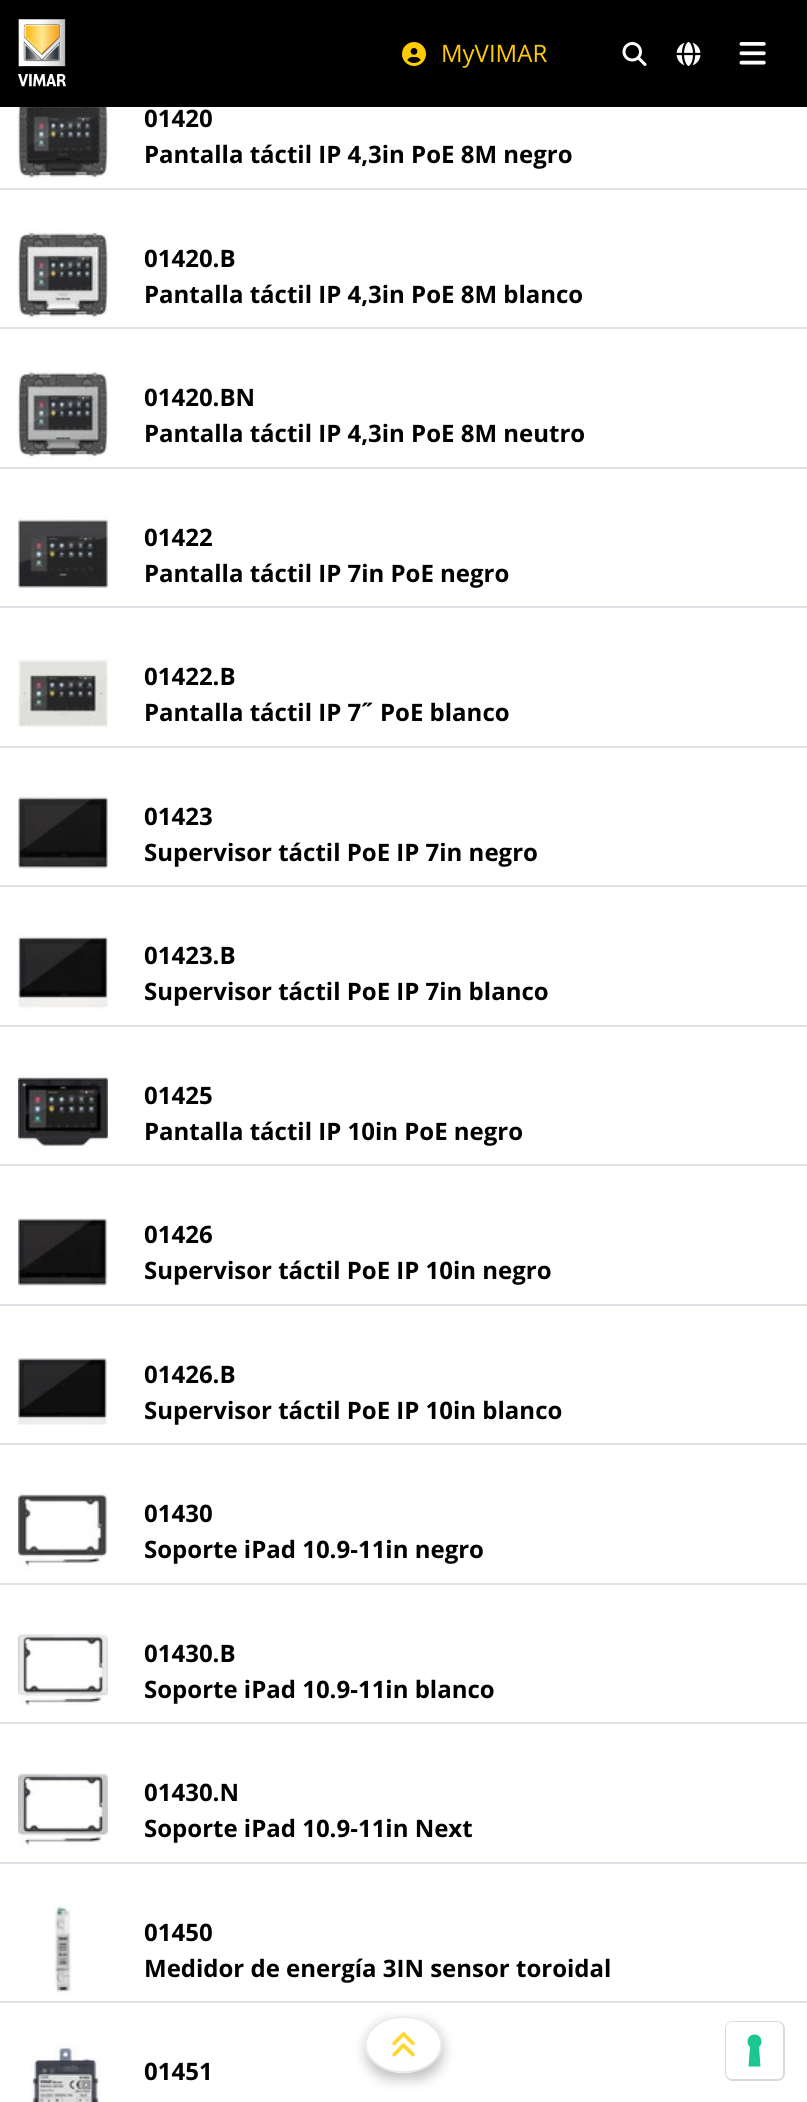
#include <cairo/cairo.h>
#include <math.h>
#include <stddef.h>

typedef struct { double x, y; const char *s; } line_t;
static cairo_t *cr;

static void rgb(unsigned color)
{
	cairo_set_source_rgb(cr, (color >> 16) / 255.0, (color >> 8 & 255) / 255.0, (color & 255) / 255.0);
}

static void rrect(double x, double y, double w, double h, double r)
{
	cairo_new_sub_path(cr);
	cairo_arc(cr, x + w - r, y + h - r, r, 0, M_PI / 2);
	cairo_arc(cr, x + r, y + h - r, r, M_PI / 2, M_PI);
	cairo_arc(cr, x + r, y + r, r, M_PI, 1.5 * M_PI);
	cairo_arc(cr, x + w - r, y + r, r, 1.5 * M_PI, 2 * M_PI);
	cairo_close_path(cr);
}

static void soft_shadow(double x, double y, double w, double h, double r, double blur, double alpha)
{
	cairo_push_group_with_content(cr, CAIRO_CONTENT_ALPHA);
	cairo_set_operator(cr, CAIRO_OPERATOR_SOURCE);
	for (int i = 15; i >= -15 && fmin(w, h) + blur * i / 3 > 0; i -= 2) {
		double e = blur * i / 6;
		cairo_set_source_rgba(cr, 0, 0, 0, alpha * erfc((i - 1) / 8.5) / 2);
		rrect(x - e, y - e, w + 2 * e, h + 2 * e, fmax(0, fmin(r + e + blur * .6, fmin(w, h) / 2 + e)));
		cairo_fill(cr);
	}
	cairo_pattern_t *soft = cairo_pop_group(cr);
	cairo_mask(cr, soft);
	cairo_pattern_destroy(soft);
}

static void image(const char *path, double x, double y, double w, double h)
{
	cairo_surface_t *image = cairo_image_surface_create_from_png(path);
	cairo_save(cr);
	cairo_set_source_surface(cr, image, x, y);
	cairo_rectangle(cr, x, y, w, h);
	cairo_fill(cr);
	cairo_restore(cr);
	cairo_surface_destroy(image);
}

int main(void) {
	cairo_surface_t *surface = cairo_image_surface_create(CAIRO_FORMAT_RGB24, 807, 2102);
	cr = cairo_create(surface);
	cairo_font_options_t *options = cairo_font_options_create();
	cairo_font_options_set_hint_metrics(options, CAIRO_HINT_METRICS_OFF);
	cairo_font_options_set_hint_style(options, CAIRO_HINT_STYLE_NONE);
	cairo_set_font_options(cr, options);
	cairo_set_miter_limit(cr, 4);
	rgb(0xffffff);
	cairo_paint(cr);
	rgb(0x000000);
	cairo_rectangle(cr, 0, 0, 807, 107);
	cairo_fill(cr);
	image("img/1.png", 18, 19, 48, 68);
	image("img/2.png", 402, 42, 24, 24);
	image("img/3.png", 622, 42, 25, 24);
	image("img/4.png", 676, 42, 25, 24);
	image("img/5.png", 739, 42, 27, 23);
	rgb(0xdee2e6);
	cairo_rectangle(cr, 0, 188, 807, 2);
	cairo_fill(cr);
	image("img/6.png", 18, 107, 90, 74);
	cairo_rectangle(cr, 0, 327, 807, 2);
	cairo_fill(cr);
	image("img/7.png", 18, 230, 90, 90);
	cairo_rectangle(cr, 0, 467, 807, 2);
	cairo_fill(cr);
	image("img/8.png", 18, 370, 90, 90);
	cairo_rectangle(cr, 0, 606, 807, 2);
	cairo_fill(cr);
	image("img/9.png", 18, 516, 90, 72);
	cairo_rectangle(cr, 0, 746, 807, 2);
	cairo_fill(cr);
	image("img/10.png", 18, 659, 90, 69);
	cairo_rectangle(cr, 0, 885, 807, 2);
	cairo_fill(cr);
	image("img/11.png", 18, 796, 90, 73);
	cairo_rectangle(cr, 0, 1025, 807, 2);
	cairo_fill(cr);
	image("img/12.png", 18, 934, 90, 78);
	cairo_rectangle(cr, 0, 1164, 807, 2);
	cairo_fill(cr);
	image("img/13.png", 18, 1074, 90, 76);
	cairo_rectangle(cr, 0, 1304, 807, 2);
	cairo_fill(cr);
	image("img/14.png", 18, 1218, 90, 68);
	cairo_rectangle(cr, 0, 1443, 807, 2);
	cairo_fill(cr);
	image("img/15.png", 18, 1358, 90, 67);
	cairo_rectangle(cr, 0, 1583, 807, 2);
	cairo_fill(cr);
	image("img/16.png", 18, 1492, 90, 78);
	cairo_rectangle(cr, 0, 1722, 807, 2);
	cairo_fill(cr);
	image("img/17.png", 18, 1634, 90, 72);
	cairo_rectangle(cr, 0, 1862, 807, 2);
	cairo_fill(cr);
	image("img/18.png", 18, 1773, 90, 76);
	cairo_rectangle(cr, 0, 2001, 807, 2);
	cairo_fill(cr);
	image("img/19.png", 54, 1905, 18, 90);
	image("img/20.png", 30, 2044, 72, 58);
	cairo_save(cr);
	cairo_set_fill_rule(cr, CAIRO_FILL_RULE_EVEN_ODD);
	cairo_new_path(cr);
	cairo_move_to(cr, 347, 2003);
	cairo_line_to(cr, 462, 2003);
	cairo_line_to(cr, 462, 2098);
	cairo_line_to(cr, 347, 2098);
	cairo_close_path(cr);
	cairo_move_to(cr, 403.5, 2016);
	cairo_curve_to(cr, 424.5, 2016, 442, 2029, 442, 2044.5);
	cairo_curve_to(cr, 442, 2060, 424.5, 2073, 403.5, 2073);
	cairo_curve_to(cr, 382.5, 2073, 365, 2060, 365, 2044.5);
	cairo_curve_to(cr, 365, 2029, 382.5, 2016, 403.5, 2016);
	cairo_close_path(cr);
	cairo_clip(cr);
	rgb(0x333333);
	soft_shadow(366, 2022, 77, 57, 28.5, 6, 0.3);
	cairo_restore(cr);
	cairo_new_path(cr);
	cairo_move_to(cr, 403.5, 2017);
	cairo_curve_to(cr, 424, 2017, 441, 2029, 441, 2044.5);
	cairo_curve_to(cr, 441, 2060, 424, 2072, 403.5, 2072);
	cairo_curve_to(cr, 383, 2072, 366, 2060, 366, 2044.5);
	cairo_curve_to(cr, 366, 2029, 383, 2017, 403.5, 2017);
	cairo_close_path(cr);
	rgb(0xe5e8eb);
	cairo_set_line_width(cr, 1.5);
	cairo_stroke(cr);
	image("img/21.png", 392, 2032, 23, 25);
	rrect(726, 2022, 58, 58, 7);
	rgb(0xd9d9d9);
	cairo_set_line_width(cr, 2);
	cairo_stroke(cr);
	rgb(0xffffff);
	rrect(726, 2022, 57, 57, 6);
	cairo_fill(cr);
	rgb(0x1cc691);
	cairo_set_fill_rule(cr, CAIRO_FILL_RULE_EVEN_ODD);
	cairo_new_path(cr);
	cairo_move_to(cr, 754.5, 2034.5);
	cairo_curve_to(cr, 761, 2034.5, 764, 2042.5, 759, 2047);
	cairo_line_to(cr, 760.5, 2066.5);
	cairo_line_to(cr, 748.5, 2066.5);
	cairo_line_to(cr, 750, 2047);
	cairo_curve_to(cr, 745, 2042.5, 748, 2034.5, 754.5, 2034.5);
	cairo_close_path(cr);
	cairo_fill(cr);
	cairo_select_font_face(cr, "Open Sans", CAIRO_FONT_SLANT_NORMAL, CAIRO_FONT_WEIGHT_NORMAL);
	cairo_set_font_size(cr, 24);
	rgb(0xffcc00);
	cairo_move_to(cr, 441, 62);
	cairo_show_text(cr, "MyVIMAR");
	cairo_select_font_face(cr, "Open Sans", CAIRO_FONT_SLANT_NORMAL, CAIRO_FONT_WEIGHT_BOLD);
	rgb(0x000000);
	{
		static const line_t items[] = {
			{144, 127, "01420"},
			{144, 163, "Pantalla táctil IP 4,3in PoE 8M negro"},
			{144, 267, "01420.B"},
			{144, 303, "Pantalla táctil IP 4,3in PoE 8M blanco"},
			{144, 406, "01420.BN"},
			{144, 442, "Pantalla táctil IP 4,3in PoE 8M neutro"},
			{144, 546, "01422"},
			{144, 582, "Pantalla táctil IP 7in PoE negro"},
			{144, 685, "01422.B"},
			{144, 721, "Pantalla táctil IP 7"},
		};
		for (size_t i = 0; i < sizeof items / sizeof *items; i++) {
			cairo_move_to(cr, items[i].x, items[i].y);
			cairo_show_text(cr, items[i].s);
		}
	}
	cairo_select_font_face(cr, "Noto Sans", CAIRO_FONT_SLANT_NORMAL, CAIRO_FONT_WEIGHT_BOLD);
	cairo_move_to(cr, 361, 721);
	cairo_show_text(cr, "˝");
	cairo_select_font_face(cr, "Open Sans", CAIRO_FONT_SLANT_NORMAL, CAIRO_FONT_WEIGHT_BOLD);
	{
		static const line_t items[] = {
			{380, 721, "PoE blanco"},
			{144, 825, "01423"},
			{144, 861, "Supervisor táctil PoE IP 7in negro"},
			{144, 964, "01423.B"},
			{144, 1000, "Supervisor táctil PoE IP 7in blanco"},
			{144, 1104, "01425"},
			{144, 1140, "Pantalla táctil IP 10in PoE negro"},
			{144, 1243, "01426"},
			{144, 1279, "Supervisor táctil PoE IP 10in negro"},
			{144, 1383, "01426.B"},
			{144, 1419, "Supervisor táctil PoE IP 10in blanco"},
			{144, 1522, "01430"},
			{144, 1558, "Soporte iPad 10.9-11in negro"},
			{144, 1662, "01430.B"},
			{144, 1698, "Soporte iPad 10.9-11in blanco"},
			{144, 1801, "01430.N"},
			{144, 1837, "Soporte iPad 10.9-11in Next"},
			{144, 1941, "01450"},
			{144, 1977, "Medidor de energía 3IN sensor toroidal"},
			{144, 2080, "01451"},
		};
		for (size_t i = 0; i < sizeof items / sizeof *items; i++) {
			cairo_move_to(cr, items[i].x, items[i].y);
			cairo_show_text(cr, items[i].s);
		}
	}
	cairo_surface_write_to_png(surface, "page.png");
	cairo_font_options_destroy(options);
	cairo_destroy(cr);
	cairo_surface_destroy(surface);
	return 0;
}
